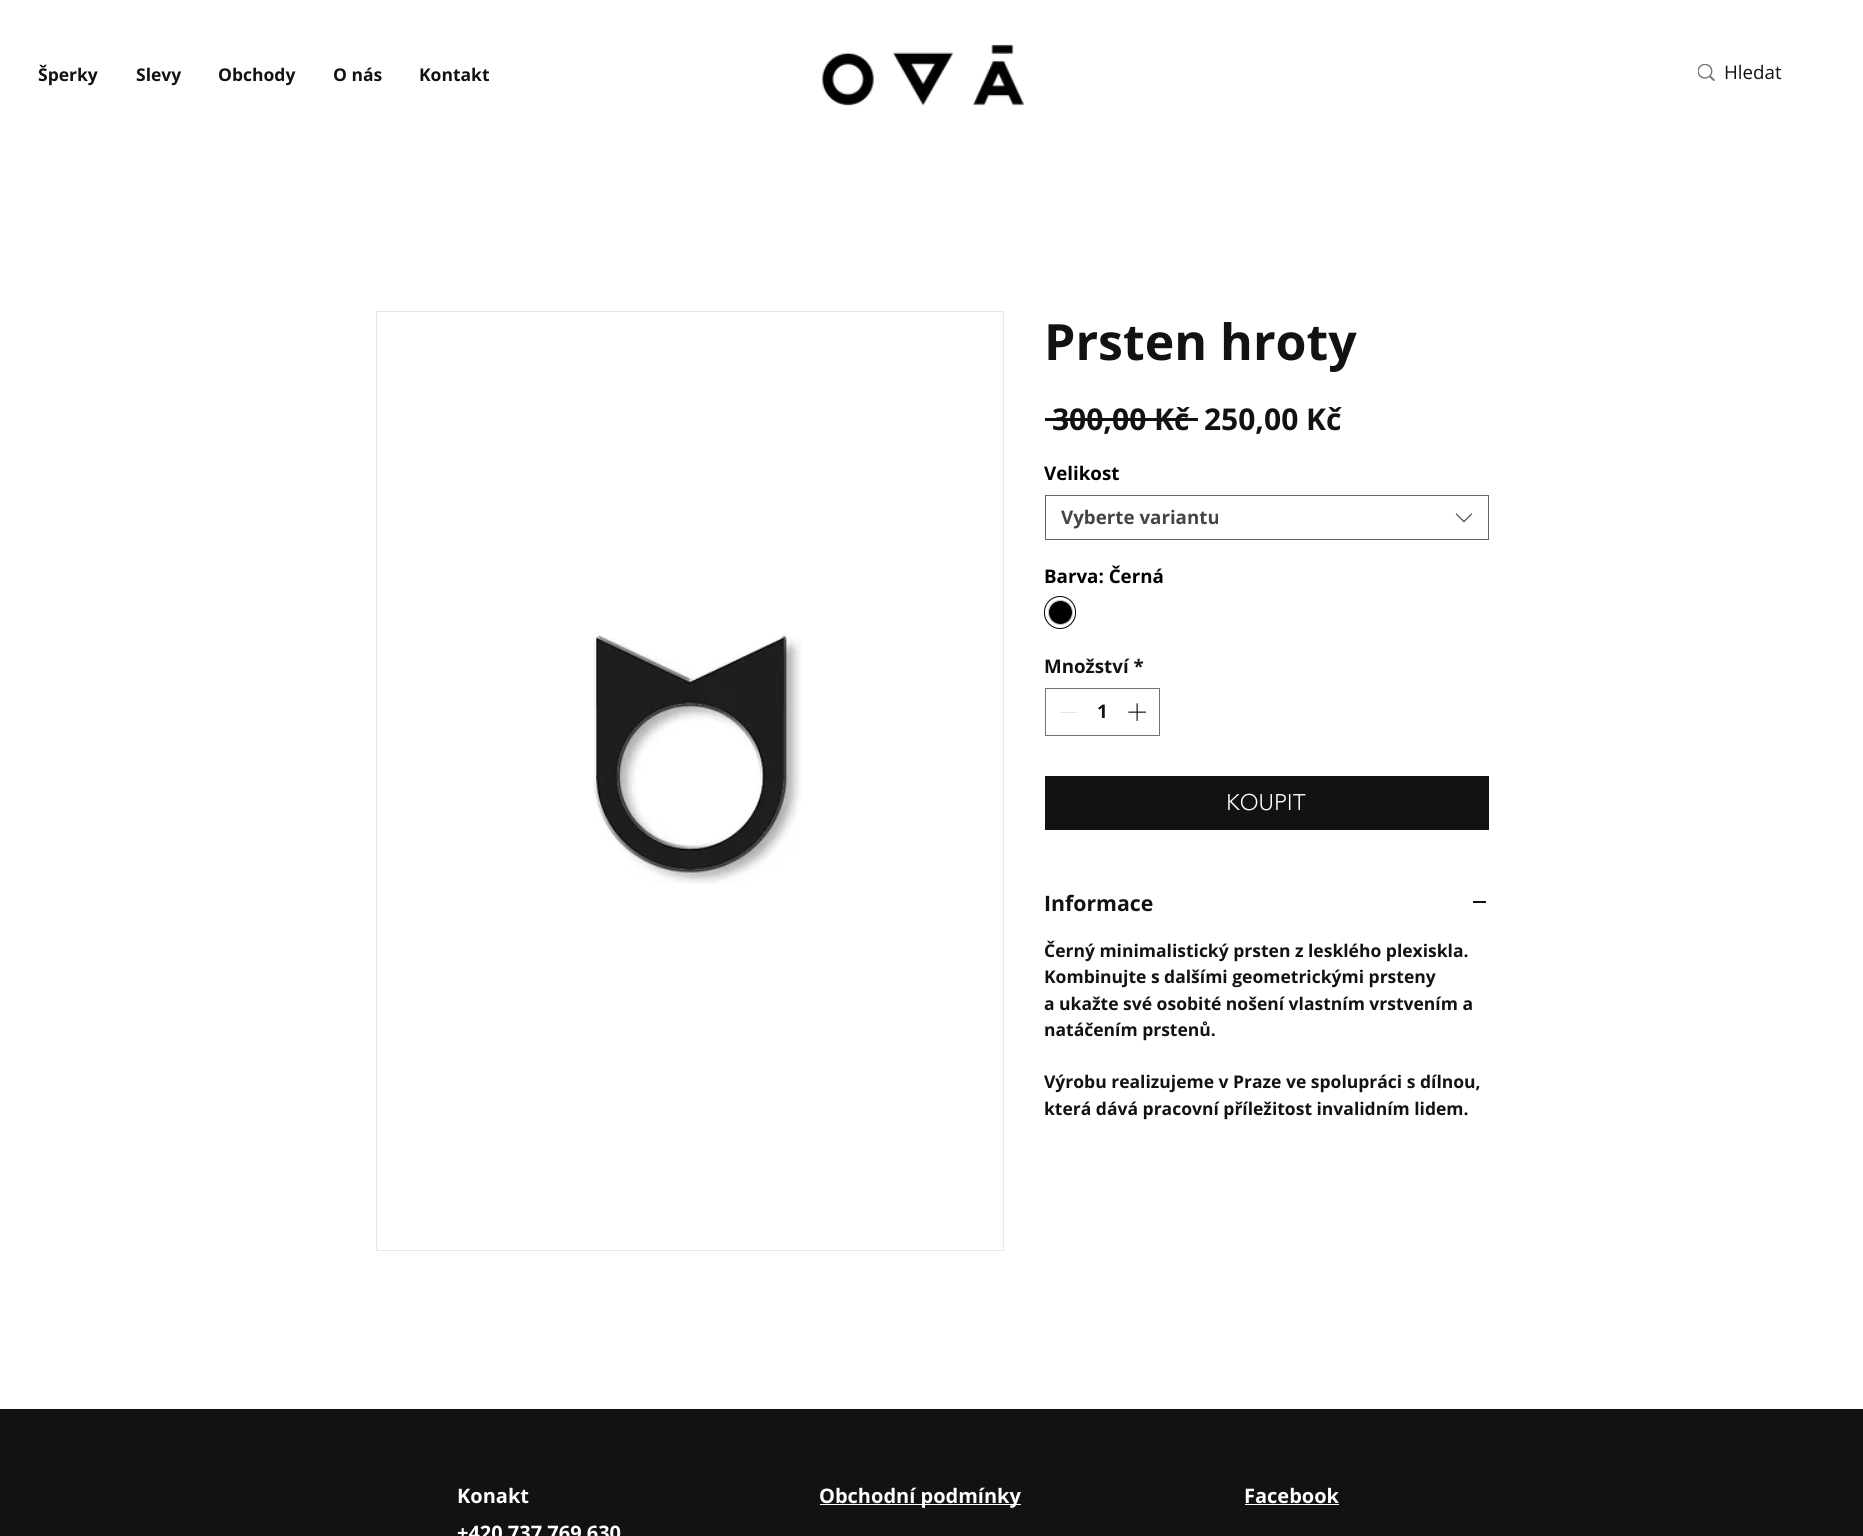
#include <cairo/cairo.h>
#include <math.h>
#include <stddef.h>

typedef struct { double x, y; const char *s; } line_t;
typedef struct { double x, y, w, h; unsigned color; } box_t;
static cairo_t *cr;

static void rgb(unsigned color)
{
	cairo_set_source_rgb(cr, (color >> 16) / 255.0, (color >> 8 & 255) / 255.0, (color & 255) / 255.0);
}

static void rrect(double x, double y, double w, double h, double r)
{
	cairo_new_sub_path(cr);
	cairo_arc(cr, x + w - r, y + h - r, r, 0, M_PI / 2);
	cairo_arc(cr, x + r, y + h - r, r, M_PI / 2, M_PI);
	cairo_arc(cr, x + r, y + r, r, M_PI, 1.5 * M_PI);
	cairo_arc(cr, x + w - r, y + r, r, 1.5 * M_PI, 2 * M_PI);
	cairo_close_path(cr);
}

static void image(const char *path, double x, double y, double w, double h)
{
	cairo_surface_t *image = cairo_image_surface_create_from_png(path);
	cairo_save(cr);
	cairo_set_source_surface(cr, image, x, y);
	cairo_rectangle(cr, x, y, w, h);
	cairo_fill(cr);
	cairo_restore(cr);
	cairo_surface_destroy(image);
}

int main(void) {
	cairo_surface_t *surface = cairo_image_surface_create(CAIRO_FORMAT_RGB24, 1863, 1536);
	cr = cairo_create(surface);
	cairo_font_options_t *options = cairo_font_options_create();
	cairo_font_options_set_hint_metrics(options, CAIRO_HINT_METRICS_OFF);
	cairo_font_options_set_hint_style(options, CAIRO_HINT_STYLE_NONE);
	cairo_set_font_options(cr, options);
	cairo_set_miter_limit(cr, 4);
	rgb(0xffffff);
	cairo_paint(cr);
	image("img/1.png", 821, 44, 203, 62);
	image("img/2.png", 1698, 64, 17, 17);
	cairo_rectangle(cr, 376.5, 311.5, 627, 939);
	rgb(0xe8e6e6);
	cairo_set_line_width(cr, 1);
	cairo_stroke(cr);
	image("img/3.png", 593, 632, 209, 252);
	rgb(0x121212);
	cairo_rectangle(cr, 1045, 418, 153, 3);
	cairo_fill(cr);
	cairo_rectangle(cr, 1045.5, 495.5, 443, 44);
	rgb(0x666666);
	cairo_stroke(cr);
	image("img/4.png", 1455, 513, 18, 10);
	rrect(1044.5, 596.5, 31, 32, 15.5);
	rgb(0x000000);
	cairo_stroke(cr);
	cairo_arc(cr, 1060.5, 612.5, 12, 0, 2 * M_PI);
	cairo_fill_preserve(cr);
	rgb(0xc9c9c9);
	cairo_stroke(cr);
	cairo_rectangle(cr, 1045.5, 688.5, 114, 47);
	rgb(0x717171);
	cairo_stroke(cr);
	rgb(0xe3e3e3);
	cairo_rectangle(cr, 1060, 712, 17, 1);
	cairo_fill(cr);
	image("img/5.png", 1128, 703, 18, 18);
	{
		static const box_t items[] = {
			{1045, 776, 444, 54, 0x121212},
			{1473, 901, 13, 2, 0x121212},
			{0, 1409, 1863, 127, 0x121212},
			{820, 1504, 201, 1, 0xffffff},
			{1245, 1504, 94, 1, 0xffffff},
		};
		for (size_t i = 0; i < sizeof items / sizeof *items; i++) {
			rgb(items[i].color);
			cairo_rectangle(cr, items[i].x, items[i].y, items[i].w, items[i].h);
			cairo_fill(cr);
		}
	}
	cairo_select_font_face(cr, "Open Sans", CAIRO_FONT_SLANT_NORMAL, CAIRO_FONT_WEIGHT_BOLD);
	cairo_set_font_size(cr, 17.5);
	rgb(0x121212);
	{
		static const line_t items[] = {
			{38, 81, "Šperky"},
			{136, 81, "Slevy"},
			{218, 81, "Obchody"},
			{333, 81, "O nás"},
			{419, 81, "Kontakt"},
		};
		for (size_t i = 0; i < sizeof items / sizeof *items; i++) {
			cairo_move_to(cr, items[i].x, items[i].y);
			cairo_show_text(cr, items[i].s);
		}
	}
	cairo_select_font_face(cr, "Open Sans", CAIRO_FONT_SLANT_NORMAL, CAIRO_FONT_WEIGHT_NORMAL);
	cairo_set_font_size(cr, 18.75);
	cairo_move_to(cr, 1724, 79);
	cairo_show_text(cr, "Hledat");
	cairo_select_font_face(cr, "Open Sans", CAIRO_FONT_SLANT_NORMAL, CAIRO_FONT_WEIGHT_BOLD);
	cairo_set_font_size(cr, 50);
	cairo_move_to(cr, 1044, 360);
	cairo_show_text(cr, "Prsten hroty");
	cairo_set_font_size(cr, 30);
	cairo_move_to(cr, 1052, 430);
	cairo_show_text(cr, "300,00 Kč");
	cairo_move_to(cr, 1204, 430);
	cairo_show_text(cr, "250,00 Kč");
	cairo_set_font_size(cr, 18.75);
	rgb(0x000000);
	cairo_move_to(cr, 1044, 480);
	cairo_show_text(cr, "Velikost");
	rgb(0x444444);
	cairo_move_to(cr, 1061, 524);
	cairo_show_text(cr, "Vyberte variantu");
	rgb(0x000000);
	cairo_move_to(cr, 1044, 583);
	cairo_show_text(cr, "Barva: Černá");
	rgb(0x121212);
	cairo_move_to(cr, 1044, 673);
	cairo_show_text(cr, "Množství *");
	cairo_move_to(cr, 1097, 718);
	cairo_show_text(cr, "1");
	cairo_select_font_face(cr, "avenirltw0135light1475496 Light", CAIRO_FONT_SLANT_NORMAL, CAIRO_FONT_WEIGHT_NORMAL);
	cairo_set_font_size(cr, 22.5);
	rgb(0xffffff);
	cairo_move_to(cr, 1226, 810);
	cairo_show_text(cr, "KOUPIT");
	cairo_select_font_face(cr, "Open Sans", CAIRO_FONT_SLANT_NORMAL, CAIRO_FONT_WEIGHT_BOLD);
	cairo_set_font_size(cr, 21.25);
	rgb(0x121212);
	cairo_move_to(cr, 1044, 911);
	cairo_show_text(cr, "Informace");
	cairo_set_font_size(cr, 17.5);
	{
		static const line_t items[] = {
			{1044, 957, "Černý minimalistický prsten z lesklého plexiskla."},
			{1044, 983, "Kombinujte s dalšími geometrickými prsteny"},
			{1044, 1010, "a ukažte své osobité nošení vlastním vrstvením a"},
			{1044, 1036, "natáčením prstenů."},
			{1044, 1088, "Výrobu realizujeme v Praze ve spolupráci s dílnou,"},
			{1044, 1115, "která dává pracovní příležitost invalidním lidem."},
		};
		for (size_t i = 0; i < sizeof items / sizeof *items; i++) {
			cairo_move_to(cr, items[i].x, items[i].y);
			cairo_show_text(cr, items[i].s);
		}
	}
	cairo_set_font_size(cr, 20);
	rgb(0xffffff);
	{
		static const line_t items[] = {
			{457, 1503, "Konakt"},
			{457, 1540, "+420 737 769 630"},
			{819, 1503, "Obchodní podmínky"},
			{1244, 1503, "Facebook"},
		};
		for (size_t i = 0; i < sizeof items / sizeof *items; i++) {
			cairo_move_to(cr, items[i].x, items[i].y);
			cairo_show_text(cr, items[i].s);
		}
	}
	cairo_surface_write_to_png(surface, "page.png");
	cairo_font_options_destroy(options);
	cairo_destroy(cr);
	cairo_surface_destroy(surface);
	return 0;
}
